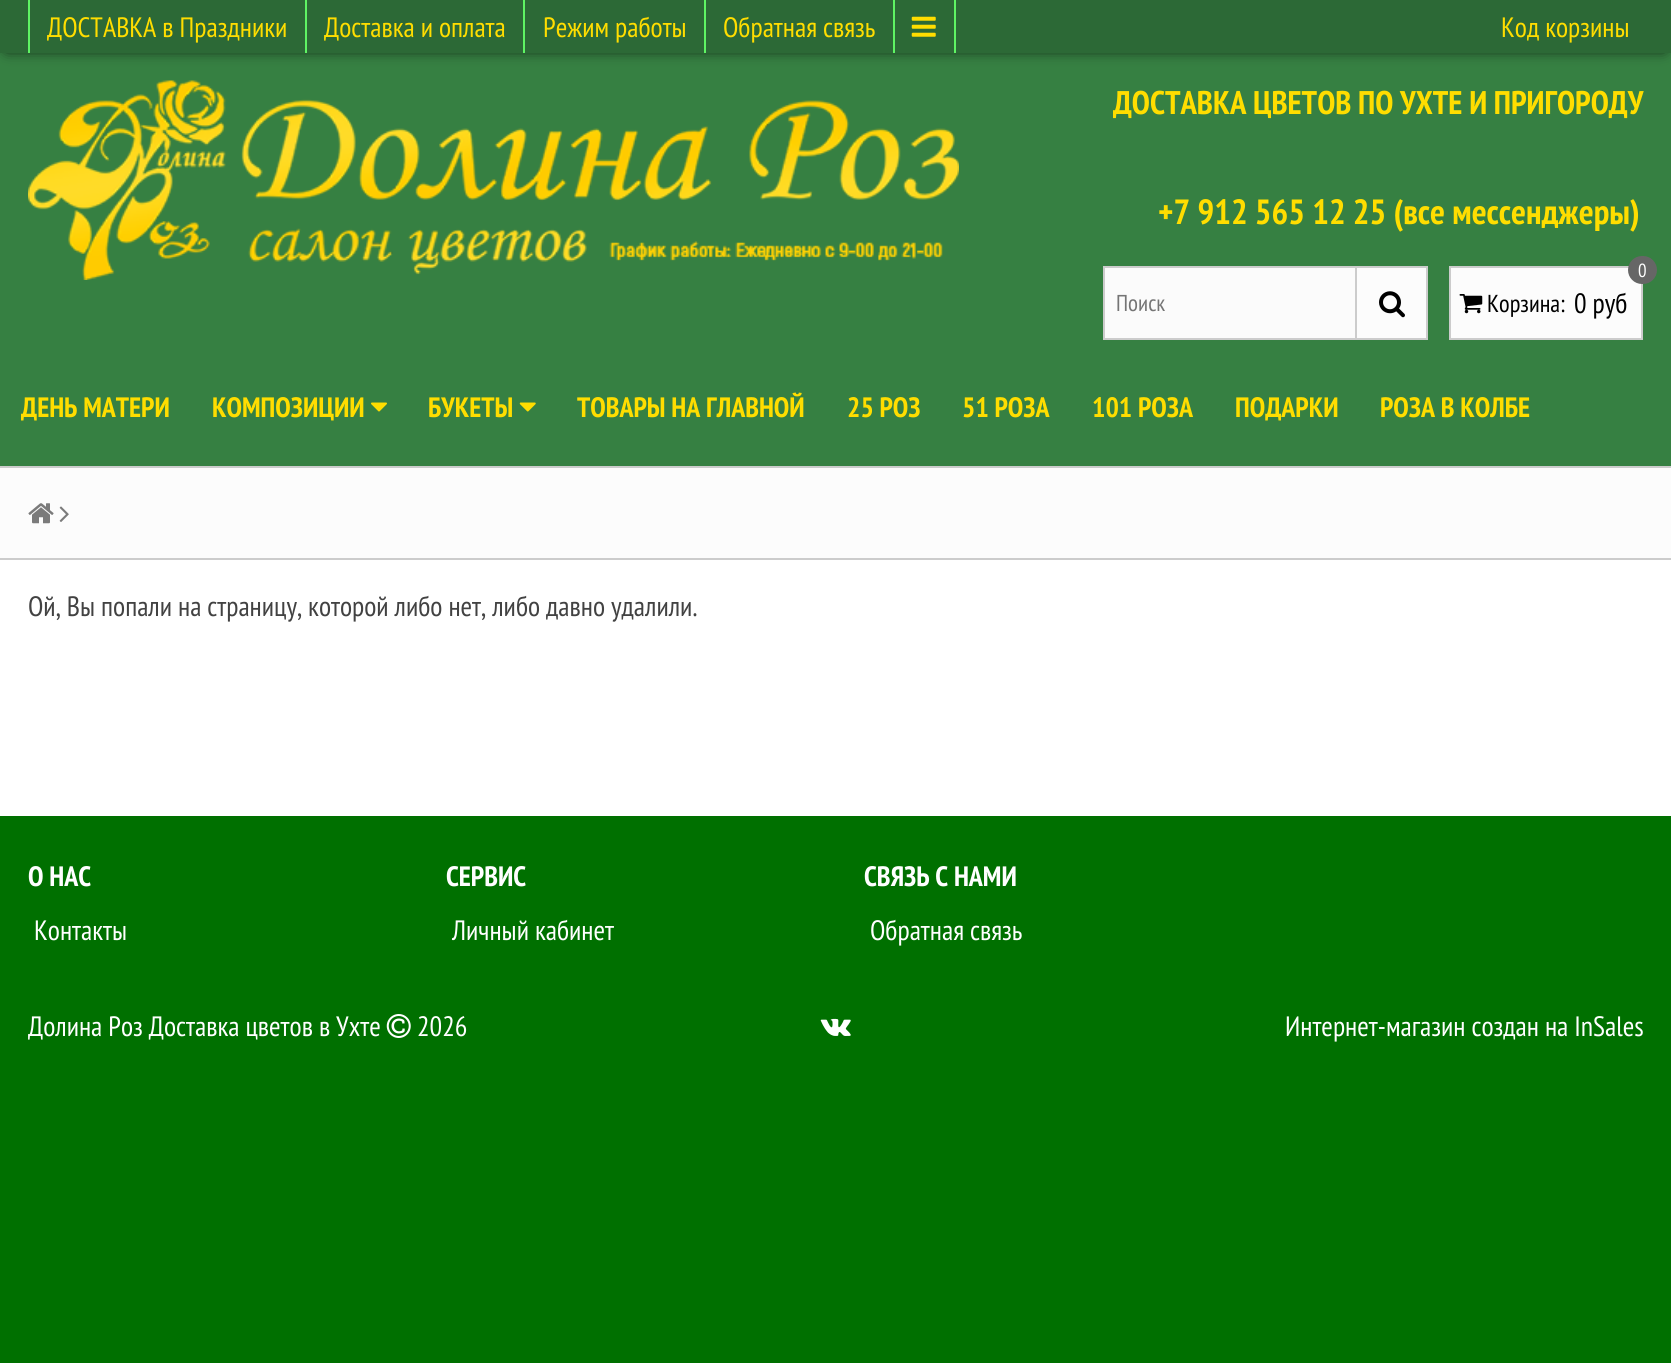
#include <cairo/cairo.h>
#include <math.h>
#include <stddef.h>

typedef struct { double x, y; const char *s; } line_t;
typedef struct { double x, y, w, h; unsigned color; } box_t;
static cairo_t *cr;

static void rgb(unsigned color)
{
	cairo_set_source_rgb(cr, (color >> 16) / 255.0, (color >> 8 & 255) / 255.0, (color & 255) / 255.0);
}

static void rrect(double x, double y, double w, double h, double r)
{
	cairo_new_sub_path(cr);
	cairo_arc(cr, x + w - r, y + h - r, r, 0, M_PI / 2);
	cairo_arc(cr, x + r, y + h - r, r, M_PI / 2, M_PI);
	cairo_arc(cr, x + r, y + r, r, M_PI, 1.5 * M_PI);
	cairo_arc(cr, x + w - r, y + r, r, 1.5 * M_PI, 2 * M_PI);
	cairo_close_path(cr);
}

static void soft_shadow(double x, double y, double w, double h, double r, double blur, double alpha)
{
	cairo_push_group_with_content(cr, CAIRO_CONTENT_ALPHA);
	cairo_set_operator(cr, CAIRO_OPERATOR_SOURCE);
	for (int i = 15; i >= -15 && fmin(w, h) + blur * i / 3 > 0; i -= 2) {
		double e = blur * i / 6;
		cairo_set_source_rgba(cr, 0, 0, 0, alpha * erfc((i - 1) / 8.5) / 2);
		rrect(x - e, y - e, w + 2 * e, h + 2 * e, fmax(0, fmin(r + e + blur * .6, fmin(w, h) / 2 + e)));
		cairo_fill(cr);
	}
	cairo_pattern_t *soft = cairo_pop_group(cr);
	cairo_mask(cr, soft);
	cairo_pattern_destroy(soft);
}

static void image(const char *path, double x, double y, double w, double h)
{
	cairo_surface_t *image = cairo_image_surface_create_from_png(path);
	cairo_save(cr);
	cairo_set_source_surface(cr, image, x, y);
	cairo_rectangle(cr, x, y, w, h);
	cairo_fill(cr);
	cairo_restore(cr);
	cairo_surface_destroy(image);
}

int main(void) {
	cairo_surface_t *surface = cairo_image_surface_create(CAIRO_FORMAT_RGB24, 1671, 1363);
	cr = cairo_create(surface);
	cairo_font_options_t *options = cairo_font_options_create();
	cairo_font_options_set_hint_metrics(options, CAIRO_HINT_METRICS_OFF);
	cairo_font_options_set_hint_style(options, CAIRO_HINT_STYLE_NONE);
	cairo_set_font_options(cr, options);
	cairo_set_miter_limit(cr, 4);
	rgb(0x007000);
	cairo_paint(cr);
	rgb(0x368042);
	cairo_rectangle(cr, 0, 53, 1671, 413);
	cairo_fill(cr);
	rgb(0x000000);
	soft_shadow(7, 11, 1657, 38, 0, 7, 1);
	{
		static const box_t items[] = {
			{0, 0, 1671, 53, 0x2c6936},
			{305, 0, 2, 53, 0x5ff464},
			{28, 0, 2, 53, 0x5ff464},
			{523, 0, 2, 53, 0x5ff464},
			{704, 0, 2, 53, 0x5ff464},
			{893, 0, 2, 53, 0x5ff464},
			{954, 0, 2, 53, 0x5ff464},
		};
		for (size_t i = 0; i < sizeof items / sizeof *items; i++) {
			rgb(items[i].color);
			cairo_rectangle(cr, items[i].x, items[i].y, items[i].w, items[i].h);
			cairo_fill(cr);
		}
	}
	image("img/1.png", 911, 16, 25, 21);
	image("img/2.png", 28, 80, 931, 200);
	{
		static const box_t items[] = {
			{1105, 268, 250, 70, 0xfbfbfb},
			{1103, 266, 252, 2, 0xcccccc},
			{1103, 338, 252, 2, 0xcccccc},
			{1103, 266, 2, 74, 0xcccccc},
		};
		for (size_t i = 0; i < sizeof items / sizeof *items; i++) {
			rgb(items[i].color);
			cairo_rectangle(cr, items[i].x, items[i].y, items[i].w, items[i].h);
			cairo_fill(cr);
		}
	}
	rgb(0xfcfcfc);
	cairo_rectangle(cr, 1356, 267, 71, 72);
	cairo_fill_preserve(cr);
	rgb(0xcccccc);
	cairo_stroke(cr);
	image("img/3.png", 1379, 291, 26, 27);
	rgb(0xfcfcfc);
	cairo_rectangle(cr, 1450, 267, 192, 72);
	cairo_fill_preserve(cr);
	rgb(0xcccccc);
	cairo_stroke(cr);
	image("img/4.png", 1459, 294, 24, 20);
	rgb(0x666666);
	rrect(1628, 256, 29, 28, 14);
	cairo_fill(cr);
	image("img/5.png", 371, 402, 16, 10);
	image("img/6.png", 519, 402, 17, 10);
	{
		static const box_t items[] = {
			{0, 468, 1671, 90, 0xfcfcfc},
			{0, 466, 1671, 2, 0xcccccc},
			{0, 558, 1671, 2, 0xcccccc},
		};
		for (size_t i = 0; i < sizeof items / sizeof *items; i++) {
			rgb(items[i].color);
			cairo_rectangle(cr, items[i].x, items[i].y, items[i].w, items[i].h);
			cairo_fill(cr);
		}
	}
	image("img/7.png", 28, 503, 26, 21);
	image("img/8.png", 59, 506, 10, 16);
	rgb(0xffffff);
	cairo_rectangle(cr, 0, 560, 1671, 256);
	cairo_fill(cr);
	image("img/9.png", 386, 1014, 25, 24);
	image("img/10.png", 820, 1018, 31, 18);
	cairo_select_font_face(cr, "PT Sans Narrow", CAIRO_FONT_SLANT_NORMAL, CAIRO_FONT_WEIGHT_NORMAL);
	cairo_set_font_size(cr, 28);
	rgb(0xffdd00);
	{
		static const line_t items[] = {
			{47, 37, "ДОСТАВКА в Праздники"},
			{324, 37, "Доставка и оплата"},
			{543, 37, "Режим работы"},
			{723, 37, "Обратная связь"},
			{1501, 37, "Код корзины"},
		};
		for (size_t i = 0; i < sizeof items / sizeof *items; i++) {
			cairo_move_to(cr, items[i].x, items[i].y);
			cairo_show_text(cr, items[i].s);
		}
	}
	cairo_select_font_face(cr, "PT Sans Narrow", CAIRO_FONT_SLANT_NORMAL, CAIRO_FONT_WEIGHT_BOLD);
	cairo_set_font_size(cr, 32.75);
	cairo_move_to(cr, 1113, 114);
	cairo_show_text(cr, "ДОСТАВКА ЦВЕТОВ ПО УХТЕ И ПРИГОРОДУ");
	cairo_set_font_size(cr, 35);
	cairo_move_to(cr, 1158, 224);
	cairo_show_text(cr, "+7 912 565 12 25 (все мессенджеры)");
	cairo_select_font_face(cr, "PT Sans Narrow", CAIRO_FONT_SLANT_NORMAL, CAIRO_FONT_WEIGHT_NORMAL);
	cairo_set_font_size(cr, 23);
	rgb(0x757575);
	cairo_move_to(cr, 1116, 311);
	cairo_show_text(cr, "Поиск");
	cairo_set_font_size(cr, 24.5);
	rgb(0x000000);
	cairo_move_to(cr, 1487, 312);
	cairo_show_text(cr, "Корзина:");
	cairo_set_font_size(cr, 19);
	rgb(0xffffff);
	cairo_move_to(cr, 1638, 277);
	cairo_show_text(cr, "0");
	cairo_set_font_size(cr, 28);
	rgb(0x000000);
	cairo_move_to(cr, 1574, 313);
	cairo_show_text(cr, "0 руб");
	cairo_select_font_face(cr, "PT Sans Narrow", CAIRO_FONT_SLANT_NORMAL, CAIRO_FONT_WEIGHT_BOLD);
	rgb(0xffdd00);
	{
		static const line_t items[] = {
			{21, 417, "ДЕНЬ МАТЕРИ"},
			{212, 417, "КОМПОЗИЦИИ"},
			{428, 417, "БУКЕТЫ"},
			{577, 417, "ТОВАРЫ НА ГЛАВНОЙ"},
			{847, 417, "25 РОЗ"},
			{962, 417, "51 РОЗА"},
			{1092, 417, "101 РОЗА"},
			{1235, 417, "ПОДАРКИ"},
			{1380, 417, "РОЗА В КОЛБЕ"},
		};
		for (size_t i = 0; i < sizeof items / sizeof *items; i++) {
			cairo_move_to(cr, items[i].x, items[i].y);
			cairo_show_text(cr, items[i].s);
		}
	}
	cairo_select_font_face(cr, "PT Sans Narrow", CAIRO_FONT_SLANT_NORMAL, CAIRO_FONT_WEIGHT_NORMAL);
	rgb(0x424242);
	cairo_move_to(cr, 28, 616);
	cairo_show_text(cr, "Ой, Вы попали на страницу, которой либо нет, либо давно удалили.");
	cairo_select_font_face(cr, "PT Sans Narrow", CAIRO_FONT_SLANT_NORMAL, CAIRO_FONT_WEIGHT_BOLD);
	rgb(0xffffff);
	cairo_move_to(cr, 28, 886);
	cairo_show_text(cr, "О НАС");
	cairo_select_font_face(cr, "PT Sans Narrow", CAIRO_FONT_SLANT_NORMAL, CAIRO_FONT_WEIGHT_NORMAL);
	cairo_move_to(cr, 34, 940);
	cairo_show_text(cr, "Контакты");
	cairo_select_font_face(cr, "PT Sans Narrow", CAIRO_FONT_SLANT_NORMAL, CAIRO_FONT_WEIGHT_BOLD);
	cairo_move_to(cr, 446, 886);
	cairo_show_text(cr, "СЕРВИС");
	cairo_select_font_face(cr, "PT Sans Narrow", CAIRO_FONT_SLANT_NORMAL, CAIRO_FONT_WEIGHT_NORMAL);
	cairo_move_to(cr, 452, 940);
	cairo_show_text(cr, "Личный кабинет");
	cairo_select_font_face(cr, "PT Sans Narrow", CAIRO_FONT_SLANT_NORMAL, CAIRO_FONT_WEIGHT_BOLD);
	cairo_move_to(cr, 864, 886);
	cairo_show_text(cr, "СВЯЗЬ С НАМИ");
	cairo_select_font_face(cr, "PT Sans Narrow", CAIRO_FONT_SLANT_NORMAL, CAIRO_FONT_WEIGHT_NORMAL);
	{
		static const line_t items[] = {
			{870, 940, "Обратная связь"},
			{28, 1036, "Долина Роз Доставка цветов в Ухте"},
			{417, 1036, "2026"},
			{1285, 1036, "Интернет-магазин создан на InSales"},
		};
		for (size_t i = 0; i < sizeof items / sizeof *items; i++) {
			cairo_move_to(cr, items[i].x, items[i].y);
			cairo_show_text(cr, items[i].s);
		}
	}
	cairo_surface_write_to_png(surface, "page.png");
	cairo_font_options_destroy(options);
	cairo_destroy(cr);
	cairo_surface_destroy(surface);
	return 0;
}
